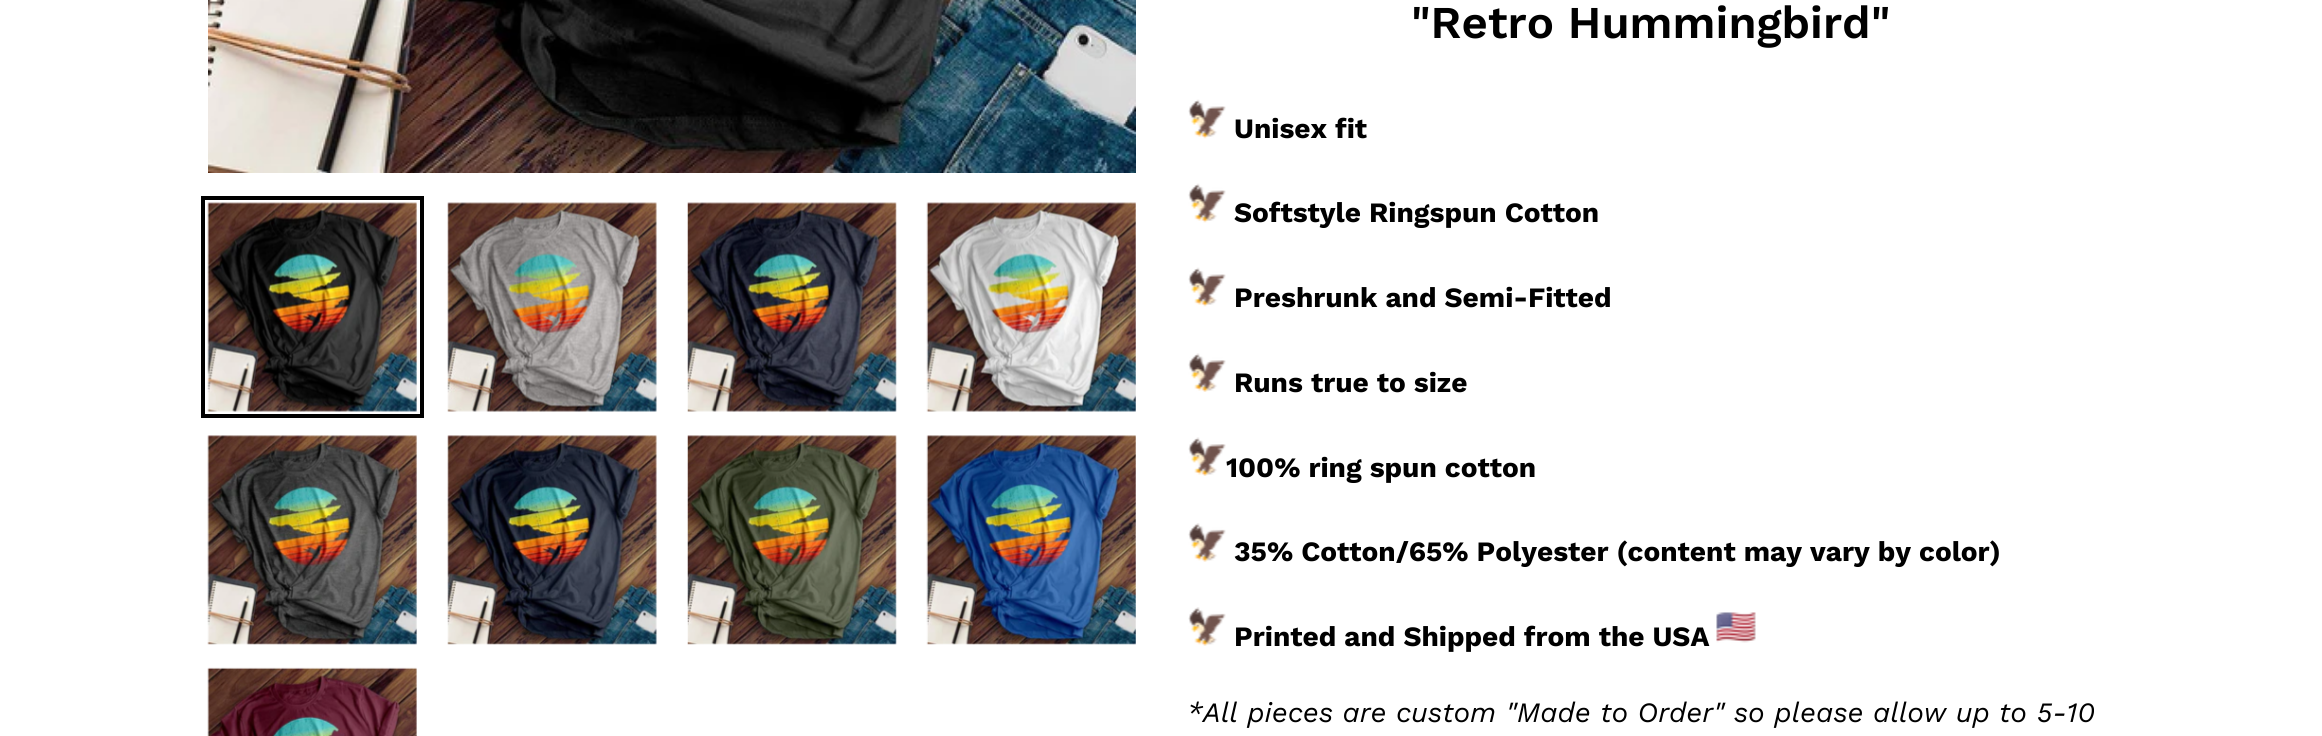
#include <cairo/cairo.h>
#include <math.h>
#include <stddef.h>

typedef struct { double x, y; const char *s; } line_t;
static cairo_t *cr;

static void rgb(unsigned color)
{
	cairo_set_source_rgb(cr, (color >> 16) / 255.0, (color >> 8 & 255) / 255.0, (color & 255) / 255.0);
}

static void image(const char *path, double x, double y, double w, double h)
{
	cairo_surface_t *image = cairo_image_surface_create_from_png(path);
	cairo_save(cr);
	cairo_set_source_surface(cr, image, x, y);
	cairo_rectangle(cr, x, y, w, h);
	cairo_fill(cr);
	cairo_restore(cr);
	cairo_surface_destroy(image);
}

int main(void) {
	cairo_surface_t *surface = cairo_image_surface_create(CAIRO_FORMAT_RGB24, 2322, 736);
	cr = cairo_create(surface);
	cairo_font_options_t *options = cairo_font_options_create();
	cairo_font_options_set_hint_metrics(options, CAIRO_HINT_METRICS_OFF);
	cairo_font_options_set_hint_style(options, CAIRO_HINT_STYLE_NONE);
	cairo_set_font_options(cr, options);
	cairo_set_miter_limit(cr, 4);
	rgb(0xffffff);
	cairo_paint(cr);
	image("img/1.png", 208, 0, 928, 173);
	cairo_rectangle(cr, 203, 198, 219, 218);
	rgb(0x000000);
	cairo_set_line_width(cr, 4);
	cairo_stroke(cr);
	image("img/2.png", 207, 202, 210, 210);
	image("img/3.png", 447, 202, 210, 210);
	image("img/4.png", 687, 202, 210, 210);
	image("img/5.png", 926, 202, 210, 210);
	image("img/6.png", 207, 435, 210, 210);
	image("img/7.png", 447, 435, 210, 210);
	image("img/8.png", 687, 435, 210, 210);
	image("img/9.png", 926, 435, 210, 210);
	image("img/10.png", 207, 667, 210, 69);
	image("img/11.png", 1188, 99, 38, 40);
	image("img/12.png", 1188, 183, 38, 40);
	image("img/11.png", 1188, 267, 38, 40);
	image("img/13.png", 1188, 353, 38, 39);
	image("img/13.png", 1188, 437, 38, 39);
	image("img/14.png", 1188, 523, 38, 39);
	image("img/14.png", 1188, 607, 38, 39);
	image("img/15.png", 1716, 612, 40, 31);
	cairo_select_font_face(cr, "Work Sans SemiBold", CAIRO_FONT_SLANT_NORMAL, CAIRO_FONT_WEIGHT_NORMAL);
	cairo_set_font_size(cr, 45.5);
	cairo_move_to(cr, 1411, 38);
	cairo_show_text(cr, "\"Retro Hummingbird\"");
	cairo_select_font_face(cr, "Work Sans", CAIRO_FONT_SLANT_NORMAL, CAIRO_FONT_WEIGHT_BOLD);
	cairo_set_font_size(cr, 28);
	{
		static const line_t items[] = {
			{1234, 138, "Unisex fit"},
			{1234, 222, "Softstyle Ringspun Cotton"},
			{1234, 307, "Preshrunk and Semi-Fitted"},
			{1234, 392, "Runs true to size"},
			{1226, 477, "100% ring spun cotton"},
			{1234, 561, "35% Cotton/65% Polyester (content may vary by color)"},
			{1234, 646, "Printed and Shipped from the USA"},
		};
		for (size_t i = 0; i < sizeof items / sizeof *items; i++) {
			cairo_move_to(cr, items[i].x, items[i].y);
			cairo_show_text(cr, items[i].s);
		}
	}
	cairo_select_font_face(cr, "Work Sans", CAIRO_FONT_SLANT_ITALIC, CAIRO_FONT_WEIGHT_NORMAL);
	cairo_move_to(cr, 1187, 722);
	cairo_show_text(cr, "*All pieces are custom \"Made to Order\" so please allow up to 5-10");
	cairo_surface_write_to_png(surface, "page.png");
	cairo_font_options_destroy(options);
	cairo_destroy(cr);
	cairo_surface_destroy(surface);
	return 0;
}
